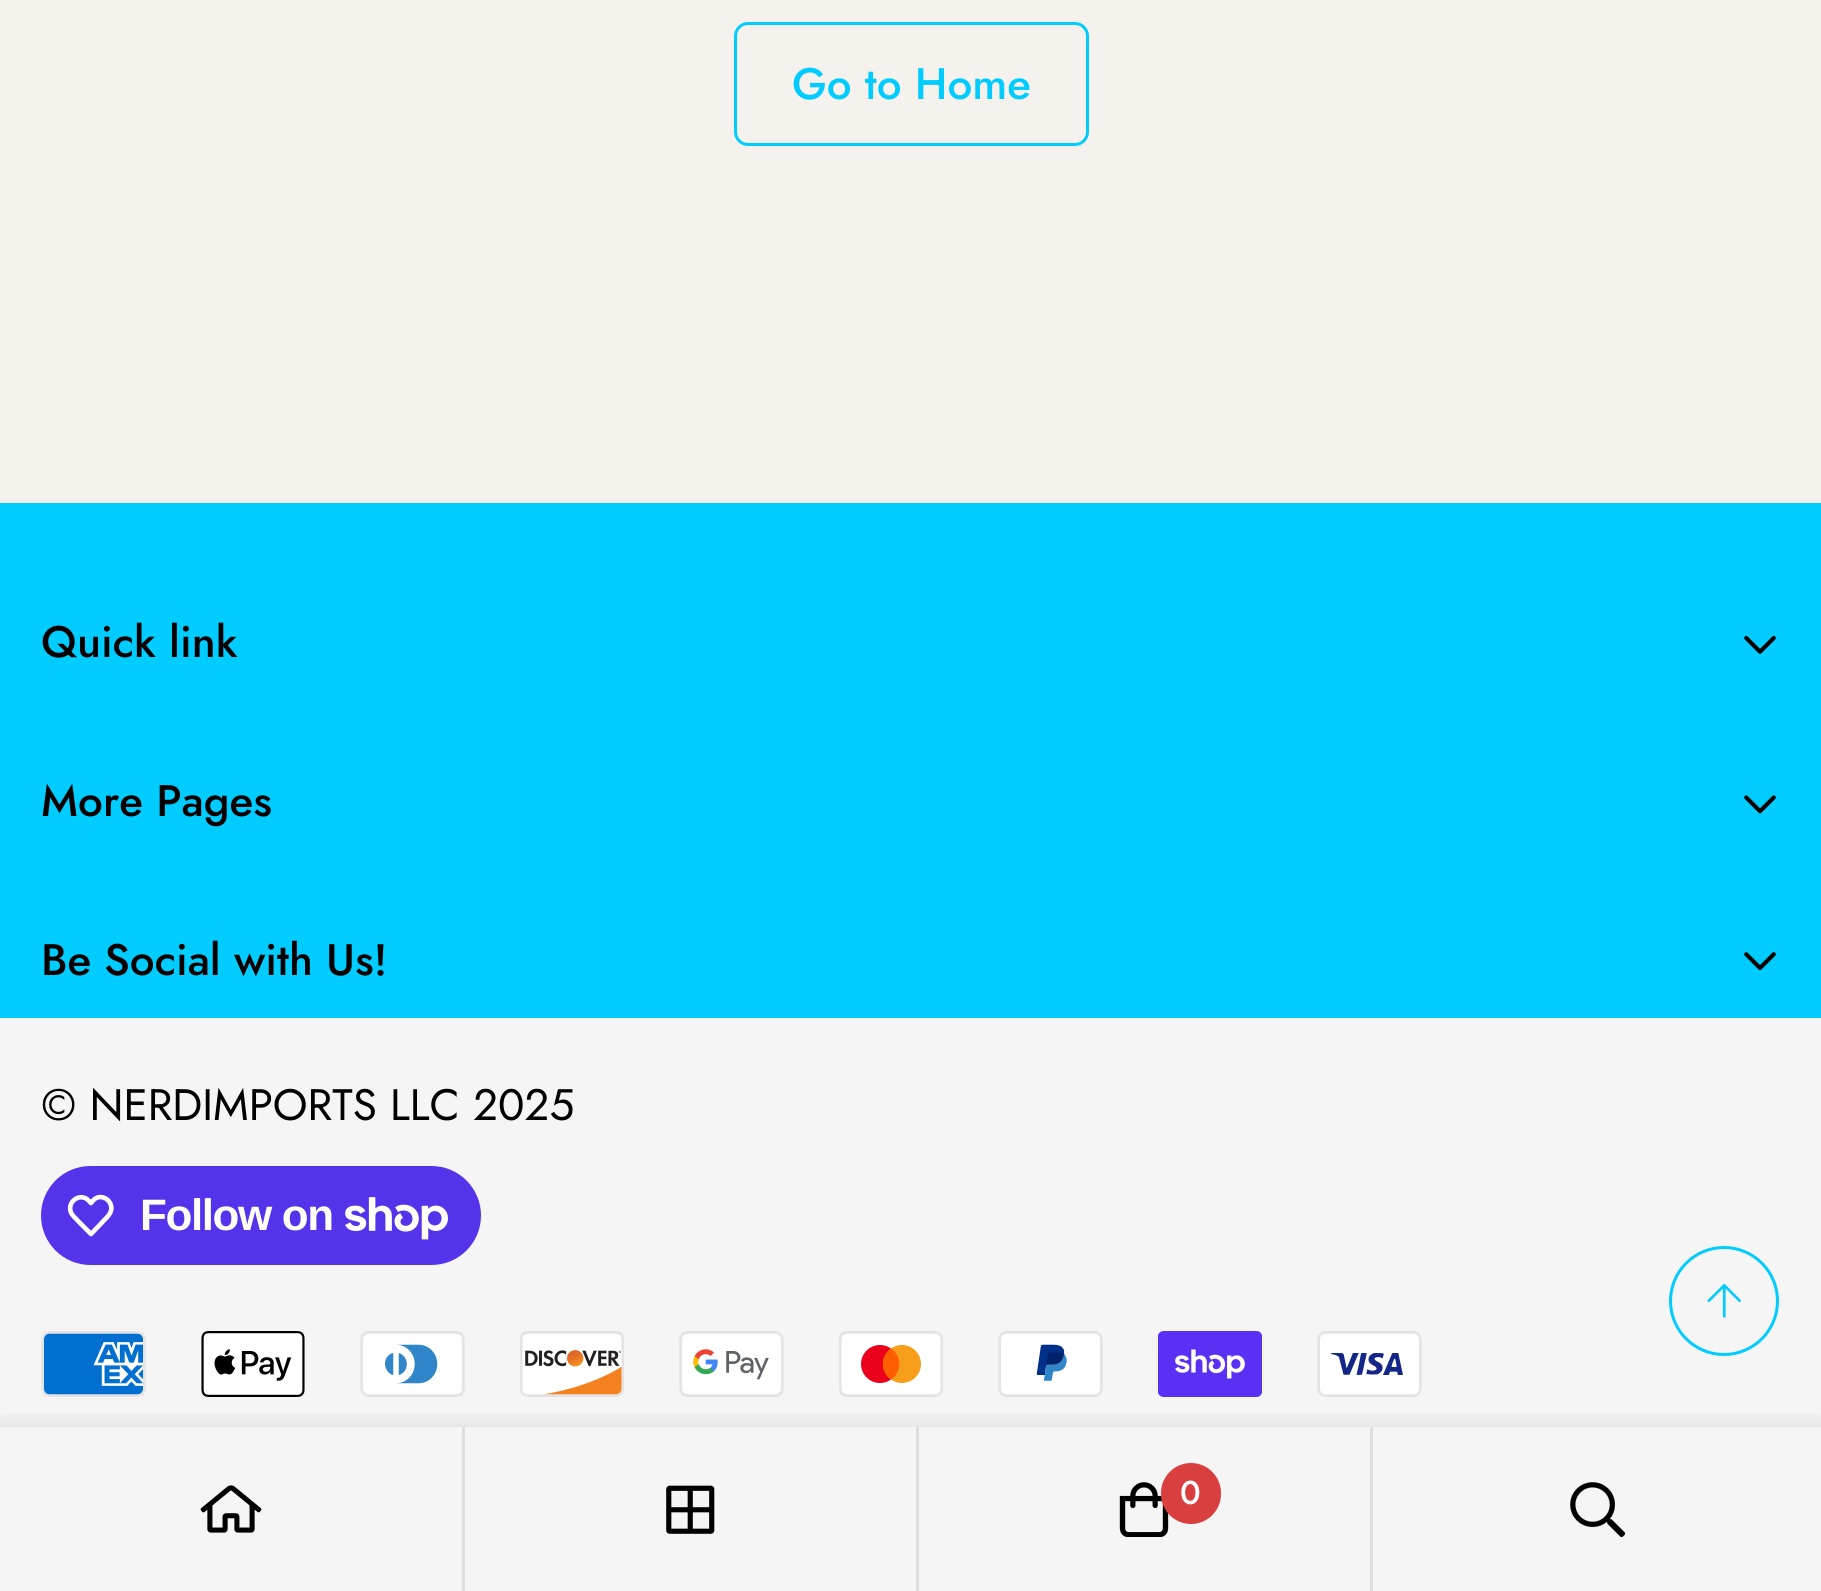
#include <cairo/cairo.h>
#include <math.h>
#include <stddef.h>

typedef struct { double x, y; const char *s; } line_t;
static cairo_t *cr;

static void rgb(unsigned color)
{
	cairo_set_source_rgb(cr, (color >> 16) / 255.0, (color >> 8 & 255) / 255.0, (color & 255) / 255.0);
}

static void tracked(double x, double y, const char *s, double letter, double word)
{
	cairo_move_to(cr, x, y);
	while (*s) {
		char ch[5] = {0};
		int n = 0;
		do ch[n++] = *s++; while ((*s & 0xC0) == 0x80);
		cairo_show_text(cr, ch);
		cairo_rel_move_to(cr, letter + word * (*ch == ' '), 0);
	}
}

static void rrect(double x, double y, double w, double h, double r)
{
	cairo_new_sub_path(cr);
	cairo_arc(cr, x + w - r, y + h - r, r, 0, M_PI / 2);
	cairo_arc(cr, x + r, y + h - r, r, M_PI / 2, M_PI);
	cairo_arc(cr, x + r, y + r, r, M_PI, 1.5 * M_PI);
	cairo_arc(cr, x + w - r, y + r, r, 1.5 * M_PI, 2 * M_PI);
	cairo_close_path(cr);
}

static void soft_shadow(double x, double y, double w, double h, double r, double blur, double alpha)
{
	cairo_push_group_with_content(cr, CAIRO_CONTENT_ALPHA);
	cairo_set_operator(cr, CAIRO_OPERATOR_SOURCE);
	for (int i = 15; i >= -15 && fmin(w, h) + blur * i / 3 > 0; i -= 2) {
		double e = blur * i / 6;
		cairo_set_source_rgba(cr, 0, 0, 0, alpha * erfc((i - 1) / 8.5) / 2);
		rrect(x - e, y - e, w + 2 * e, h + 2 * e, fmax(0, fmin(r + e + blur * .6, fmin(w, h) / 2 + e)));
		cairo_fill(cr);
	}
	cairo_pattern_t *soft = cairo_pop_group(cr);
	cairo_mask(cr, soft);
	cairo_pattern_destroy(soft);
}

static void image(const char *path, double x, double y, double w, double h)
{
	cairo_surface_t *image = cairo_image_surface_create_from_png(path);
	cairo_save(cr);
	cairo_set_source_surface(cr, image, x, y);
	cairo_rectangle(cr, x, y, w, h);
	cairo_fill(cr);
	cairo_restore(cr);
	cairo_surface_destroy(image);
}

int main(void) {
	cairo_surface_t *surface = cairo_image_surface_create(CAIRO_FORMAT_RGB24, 1821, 1591);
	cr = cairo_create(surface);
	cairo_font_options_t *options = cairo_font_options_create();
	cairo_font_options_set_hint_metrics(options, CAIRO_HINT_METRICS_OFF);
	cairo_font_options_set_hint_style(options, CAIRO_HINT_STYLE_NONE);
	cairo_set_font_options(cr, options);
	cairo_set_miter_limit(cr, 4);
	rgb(0xf5f1ed);
	cairo_paint(cr);
	rrect(735.5, 23.5, 352, 121, 12.5);
	rgb(0x00ccff);
	cairo_set_line_width(cr, 3);
	cairo_stroke(cr);
	cairo_rectangle(cr, 0, 503, 1821, 515);
	cairo_fill(cr);
	image("img/1.png", 1744, 635, 32, 19);
	image("img/2.png", 1744, 795, 32, 19);
	image("img/3.png", 1744, 952, 32, 18);
	rgb(0xf5f5f5);
	cairo_rectangle(cr, 0, 1018, 1821, 573);
	cairo_fill(cr);
	rgb(0x5433eb);
	rrect(41, 1166, 440, 99, 49.5);
	cairo_fill(cr);
	cairo_new_path(cr);
	cairo_move_to(cr, 88.5, 1200.5);
	cairo_line_to(cr, 91, 1203);
	cairo_curve_to(cr, 93, 1200.5, 94.5, 1198.5, 97.5, 1197.5);
	cairo_curve_to(cr, 106, 1195, 114, 1204, 110.5, 1212);
	cairo_curve_to(cr, 109, 1216, 105, 1219, 102.5, 1222);
	cairo_line_to(cr, 91, 1234);
	cairo_line_to(cr, 79, 1222);
	cairo_curve_to(cr, 76.5, 1219, 72.5, 1216, 71, 1212.5);
	cairo_curve_to(cr, 66.5, 1201.5, 80.5, 1192, 88.5, 1200.5);
	cairo_close_path(cr);
	rgb(0xffffff);
	cairo_set_line_width(cr, 4.6);
	cairo_set_line_join(cr, CAIRO_LINE_JOIN_ROUND);
	cairo_stroke(cr);
	image("img/4.png", 345, 1197, 103, 43);
	image("img/5.png", 41, 1331, 105, 66);
	image("img/6.png", 201, 1331, 104, 66);
	image("img/7.png", 360, 1331, 105, 66);
	image("img/8.png", 520, 1331, 104, 66);
	image("img/9.png", 679, 1331, 105, 66);
	image("img/10.png", 839, 1331, 104, 66);
	image("img/11.png", 998, 1331, 105, 66);
	image("img/12.png", 1158, 1331, 104, 66);
	image("img/13.png", 1317, 1331, 105, 66);
	cairo_arc(cr, 1724, 1301, 53.5, 0, 2 * M_PI);
	rgb(0x00ccff);
	cairo_set_line_width(cr, 3);
	cairo_set_line_join(cr, CAIRO_LINE_JOIN_MITER);
	cairo_stroke(cr);
	image("img/14.png", 1707, 1283, 34, 35);
	cairo_save(cr);
	cairo_rectangle(cr, 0, 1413, 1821, 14);
	cairo_clip(cr);
	rgb(0x000000);
	soft_shadow(0, 1427, 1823, 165, 0, 14, 0.12);
	cairo_restore(cr);
	rgb(0xdedede);
	cairo_rectangle(cr, 462, 1427, 3, 164);
	cairo_fill(cr);
	image("img/15.png", 200, 1485, 62, 48);
	cairo_rectangle(cr, 916, 1427, 3, 164);
	cairo_fill(cr);
	image("img/16.png", 666, 1485, 49, 49);
	cairo_rectangle(cr, 1370, 1427, 3, 164);
	cairo_fill(cr);
	image("img/17.png", 1119, 1482, 50, 55);
	rgb(0xda3f3f);
	rrect(1161, 1463, 60, 61, 30);
	cairo_fill(cr);
	image("img/18.png", 1570, 1482, 55, 55);
	cairo_select_font_face(cr, "Jost Medium", CAIRO_FONT_SLANT_NORMAL, CAIRO_FONT_WEIGHT_NORMAL);
	cairo_set_font_size(cr, 44);
	rgb(0x00ccff);
	cairo_move_to(cr, 792, 99);
	cairo_show_text(cr, "Go to Home");
	rgb(0x000000);
	{
		static const line_t items[] = {
			{41, 657, "Quick link"},
			{41, 816, "More Pages"},
			{41, 975, "Be Social with Us!"},
		};
		for (size_t i = 0; i < sizeof items / sizeof *items; i++) {
			cairo_move_to(cr, items[i].x, items[i].y);
			cairo_show_text(cr, items[i].s);
		}
	}
	cairo_select_font_face(cr, "Jost", CAIRO_FONT_SLANT_NORMAL, CAIRO_FONT_WEIGHT_NORMAL);
	cairo_move_to(cr, 41, 1120);
	cairo_show_text(cr, "© NERDIMPORTS LLC 2025");
	cairo_select_font_face(cr, "Liberation Sans", CAIRO_FONT_SLANT_NORMAL, CAIRO_FONT_WEIGHT_BOLD);
	rgb(0xffffff);
	tracked(140, 1230, "Follow on", -1.4, 0);
	cairo_select_font_face(cr, "Jost Medium", CAIRO_FONT_SLANT_NORMAL, CAIRO_FONT_WEIGHT_NORMAL);
	cairo_set_font_size(cr, 33);
	cairo_move_to(cr, 1180, 1504);
	cairo_show_text(cr, "0");
	cairo_surface_write_to_png(surface, "page.png");
	cairo_font_options_destroy(options);
	cairo_destroy(cr);
	cairo_surface_destroy(surface);
	return 0;
}
